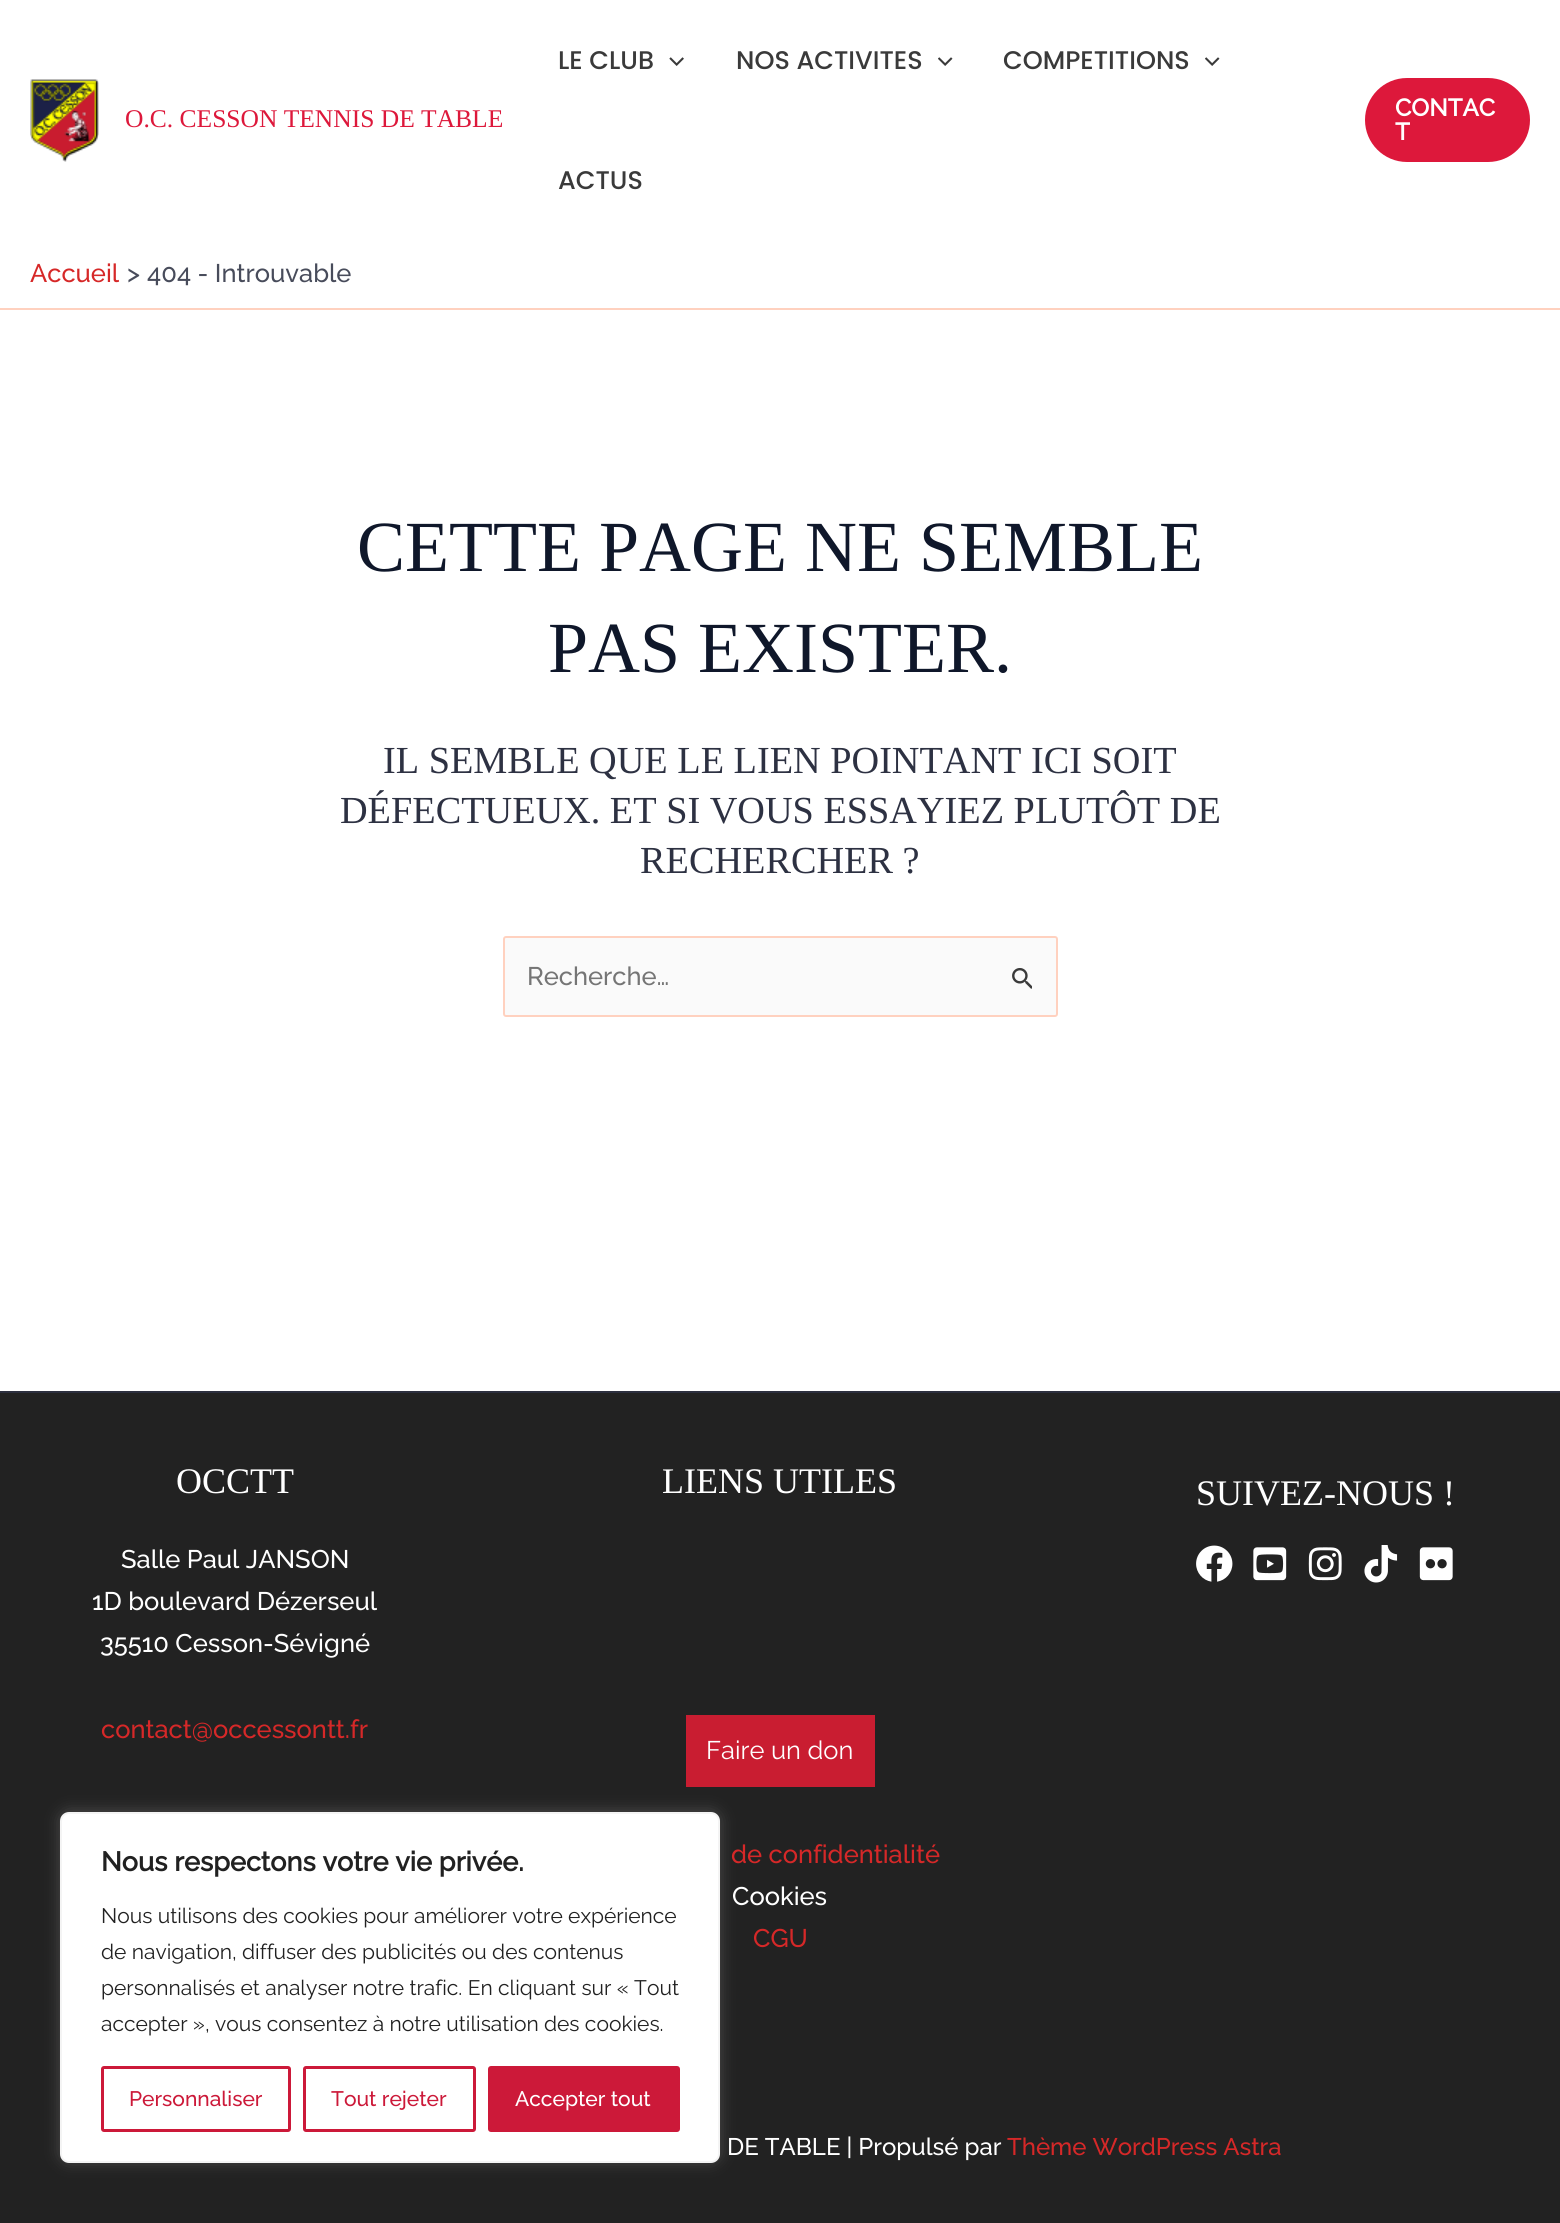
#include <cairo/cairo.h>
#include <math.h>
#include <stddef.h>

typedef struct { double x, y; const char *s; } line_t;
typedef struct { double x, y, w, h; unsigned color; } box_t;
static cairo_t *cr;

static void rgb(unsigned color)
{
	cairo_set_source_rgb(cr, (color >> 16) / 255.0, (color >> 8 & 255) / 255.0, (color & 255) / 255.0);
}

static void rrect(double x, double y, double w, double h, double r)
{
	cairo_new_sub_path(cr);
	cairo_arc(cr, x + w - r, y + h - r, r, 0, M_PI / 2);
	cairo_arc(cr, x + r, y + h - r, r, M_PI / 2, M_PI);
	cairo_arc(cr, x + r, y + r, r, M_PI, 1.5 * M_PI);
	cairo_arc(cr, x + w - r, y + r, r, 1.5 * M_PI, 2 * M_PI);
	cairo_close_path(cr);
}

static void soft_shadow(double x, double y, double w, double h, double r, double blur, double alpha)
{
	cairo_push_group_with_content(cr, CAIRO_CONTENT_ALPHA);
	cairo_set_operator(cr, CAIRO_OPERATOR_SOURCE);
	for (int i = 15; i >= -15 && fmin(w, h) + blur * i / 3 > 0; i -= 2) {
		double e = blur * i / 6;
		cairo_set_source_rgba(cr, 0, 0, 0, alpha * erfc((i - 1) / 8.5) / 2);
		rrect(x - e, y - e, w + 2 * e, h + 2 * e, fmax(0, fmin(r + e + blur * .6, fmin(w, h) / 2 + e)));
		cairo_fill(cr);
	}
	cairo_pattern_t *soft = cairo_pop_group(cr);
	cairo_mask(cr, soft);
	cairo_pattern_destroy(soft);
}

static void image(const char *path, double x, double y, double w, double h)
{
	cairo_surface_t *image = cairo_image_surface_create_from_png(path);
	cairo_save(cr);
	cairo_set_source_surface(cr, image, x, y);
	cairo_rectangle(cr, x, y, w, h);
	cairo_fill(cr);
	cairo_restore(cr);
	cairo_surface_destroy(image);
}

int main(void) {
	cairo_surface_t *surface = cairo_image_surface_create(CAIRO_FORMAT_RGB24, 1560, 2223);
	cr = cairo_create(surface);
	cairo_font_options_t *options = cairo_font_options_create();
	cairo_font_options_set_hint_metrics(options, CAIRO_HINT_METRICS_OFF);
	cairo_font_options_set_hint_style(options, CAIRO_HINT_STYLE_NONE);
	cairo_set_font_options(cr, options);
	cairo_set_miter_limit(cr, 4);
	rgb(0xffffff);
	cairo_paint(cr);
	image("img/1.png", 30, 79, 69, 83);
	image("img/2.png", 669, 57, 15, 9);
	image("img/3.png", 938, 57, 15, 9);
	image("img/3.png", 1205, 57, 15, 9);
	rgb(0xdd183b);
	rrect(1365, 78, 165, 84, 42);
	cairo_fill(cr);
	rgb(0xffd1bf);
	cairo_rectangle(cr, 0, 308, 1560, 2);
	cairo_fill(cr);
	rgb(0xfafafa);
	rrect(504, 937, 553, 79, 2);
	cairo_fill_preserve(cr);
	rgb(0xffd1bf);
	cairo_stroke(cr);
	image("img/4.png", 1012, 968, 20, 21);
	{
		static const box_t items[] = {
			{0, 1393, 1560, 830, 0x222222},
			{0, 1391, 1560, 2, 0x2c2f3e},
			{686, 1715, 189, 72, 0xc91d31},
		};
		for (size_t i = 0; i < sizeof items / sizeof *items; i++) {
			rgb(items[i].color);
			cairo_rectangle(cr, items[i].x, items[i].y, items[i].w, items[i].h);
			cairo_fill(cr);
		}
	}
	image("img/5.png", 1196, 1545, 37, 37);
	image("img/6.png", 1253, 1547, 34, 34);
	image("img/7.png", 1308, 1547, 34, 34);
	image("img/8.png", 1364, 1545, 34, 38);
	image("img/9.png", 1419, 1547, 34, 34);
	rgb(0xacabab);
	soft_shadow(60, 1811, 660, 351, 9, 7.5, 0.3);
	rgb(0xffffff);
	rrect(61, 1813, 658, 349, 8);
	cairo_fill_preserve(cr);
	rgb(0xf4f4f4);
	cairo_stroke(cr);
	rrect(102.5, 2067.5, 187, 63, 1.5);
	rgb(0xcc1939);
	cairo_set_line_width(cr, 3);
	cairo_stroke(cr);
	rrect(304.5, 2067.5, 170, 63, 1.5);
	cairo_stroke(cr);
	rrect(489.5, 2067.5, 189, 63, 1.5);
	cairo_fill_preserve(cr);
	cairo_stroke(cr);
	cairo_select_font_face(cr, "Liberation Serif", CAIRO_FONT_SLANT_NORMAL, CAIRO_FONT_WEIGHT_NORMAL);
	cairo_set_font_size(cr, 25.5);
	rgb(0xdd183b);
	cairo_move_to(cr, 125, 127);
	cairo_show_text(cr, "O.C. CESSON TENNIS DE TABLE");
	cairo_select_font_face(cr, "Poppins Medium", CAIRO_FONT_SLANT_NORMAL, CAIRO_FONT_WEIGHT_NORMAL);
	rgb(0x3a3a3a);
	{
		static const line_t items[] = {
			{558, 69, "LE CLUB"},
			{736, 69, "NOS ACTIVITES"},
			{1003, 69, "COMPETITIONS"},
			{558, 189, "ACTUS"},
		};
		for (size_t i = 0; i < sizeof items / sizeof *items; i++) {
			cairo_move_to(cr, items[i].x, items[i].y);
			cairo_show_text(cr, items[i].s);
		}
	}
	cairo_select_font_face(cr, "Raleway", CAIRO_FONT_SLANT_NORMAL, CAIRO_FONT_WEIGHT_BOLD);
	cairo_set_font_size(cr, 24);
	rgb(0xffffff);
	cairo_move_to(cr, 1395, 116);
	cairo_show_text(cr, "CONTAC");
	cairo_move_to(cr, 1395, 140);
	cairo_show_text(cr, "T");
	cairo_select_font_face(cr, "Raleway Medium", CAIRO_FONT_SLANT_NORMAL, CAIRO_FONT_WEIGHT_NORMAL);
	cairo_set_font_size(cr, 25.5);
	rgb(0xd62828);
	cairo_move_to(cr, 30, 282);
	cairo_show_text(cr, "Accueil");
	rgb(0x484c5b);
	cairo_move_to(cr, 127, 282);
	cairo_show_text(cr, ">");
	cairo_move_to(cr, 147, 282);
	cairo_show_text(cr, "404 - Introuvable");
	cairo_select_font_face(cr, "Liberation Serif", CAIRO_FONT_SLANT_NORMAL, CAIRO_FONT_WEIGHT_NORMAL);
	cairo_set_font_size(cr, 72);
	rgb(0x0f172a);
	cairo_move_to(cr, 357, 571);
	cairo_show_text(cr, "CETTE PAGE NE SEMBLE");
	cairo_move_to(cr, 548, 672);
	cairo_show_text(cr, "PAS EXISTER.");
	cairo_set_font_size(cr, 38.25);
	rgb(0x2d3142);
	{
		static const line_t items[] = {
			{383, 773, "IL SEMBLE QUE LE LIEN POINTANT ICI SOIT"},
			{340, 823, "DÉFECTUEUX. ET SI VOUS ESSAYIEZ PLUTÔT DE"},
			{640, 873, "RECHERCHER ?"},
		};
		for (size_t i = 0; i < sizeof items / sizeof *items; i++) {
			cairo_move_to(cr, items[i].x, items[i].y);
			cairo_show_text(cr, items[i].s);
		}
	}
	cairo_select_font_face(cr, "Raleway Medium", CAIRO_FONT_SLANT_NORMAL, CAIRO_FONT_WEIGHT_NORMAL);
	cairo_set_font_size(cr, 25.5);
	rgb(0x757575);
	cairo_move_to(cr, 527, 985);
	cairo_show_text(cr, "Recherche…");
	cairo_select_font_face(cr, "Liberation Serif", CAIRO_FONT_SLANT_NORMAL, CAIRO_FONT_WEIGHT_NORMAL);
	cairo_set_font_size(cr, 36);
	rgb(0xffffff);
	cairo_move_to(cr, 176, 1493);
	cairo_show_text(cr, "OCCTT");
	cairo_select_font_face(cr, "Raleway Medium", CAIRO_FONT_SLANT_NORMAL, CAIRO_FONT_WEIGHT_NORMAL);
	cairo_set_font_size(cr, 25.5);
	{
		static const line_t items[] = {
			{121, 1568, "Salle Paul JANSON"},
			{92, 1610, "1D boulevard Dézerseul"},
			{100, 1652, "35510 Cesson-Sévigné"},
		};
		for (size_t i = 0; i < sizeof items / sizeof *items; i++) {
			cairo_move_to(cr, items[i].x, items[i].y);
			cairo_show_text(cr, items[i].s);
		}
	}
	rgb(0xd62828);
	cairo_move_to(cr, 101, 1738);
	cairo_show_text(cr, "contact@occessontt.fr");
	cairo_select_font_face(cr, "Liberation Serif", CAIRO_FONT_SLANT_NORMAL, CAIRO_FONT_WEIGHT_NORMAL);
	cairo_set_font_size(cr, 36);
	rgb(0xffffff);
	cairo_move_to(cr, 662, 1493);
	cairo_show_text(cr, "LIENS UTILES");
	cairo_select_font_face(cr, "Raleway", CAIRO_FONT_SLANT_NORMAL, CAIRO_FONT_WEIGHT_NORMAL);
	cairo_set_font_size(cr, 25.5);
	cairo_move_to(cr, 706, 1759);
	cairo_show_text(cr, "Faire un don");
	cairo_select_font_face(cr, "Raleway Medium", CAIRO_FONT_SLANT_NORMAL, CAIRO_FONT_WEIGHT_NORMAL);
	rgb(0xd62828);
	cairo_move_to(cr, 731, 1863);
	cairo_show_text(cr, "de confidentialité");
	rgb(0xffffff);
	cairo_move_to(cr, 732, 1905);
	cairo_show_text(cr, "Cookies");
	rgb(0xd62828);
	cairo_move_to(cr, 753, 1947);
	cairo_show_text(cr, "CGU");
	cairo_select_font_face(cr, "Liberation Serif", CAIRO_FONT_SLANT_NORMAL, CAIRO_FONT_WEIGHT_NORMAL);
	cairo_set_font_size(cr, 36);
	rgb(0xffffff);
	cairo_move_to(cr, 1196, 1505);
	cairo_show_text(cr, "SUIVEZ-NOUS !");
	cairo_select_font_face(cr, "Raleway Medium", CAIRO_FONT_SLANT_NORMAL, CAIRO_FONT_WEIGHT_NORMAL);
	cairo_set_font_size(cr, 24);
	cairo_move_to(cr, 727, 2155);
	cairo_show_text(cr, "DE TABLE | Propulsé par");
	rgb(0xd62828);
	cairo_move_to(cr, 1007, 2155);
	cairo_show_text(cr, "Thème WordPress Astra");
	cairo_select_font_face(cr, "Raleway", CAIRO_FONT_SLANT_NORMAL, CAIRO_FONT_WEIGHT_BOLD);
	cairo_set_font_size(cr, 27);
	rgb(0x212121);
	cairo_move_to(cr, 101, 1871);
	cairo_show_text(cr, "Nous respectons votre vie privée.");
	cairo_select_font_face(cr, "Raleway", CAIRO_FONT_SLANT_NORMAL, CAIRO_FONT_WEIGHT_NORMAL);
	cairo_set_font_size(cr, 21);
	{
		static const line_t items[] = {
			{101, 1923, "Nous utilisons des cookies pour améliorer votre expérience"},
			{101, 1959, "de navigation, diffuser des publicités ou des contenus"},
			{101, 1995, "personnalisés et analyser notre trafic. En cliquant sur « Tout"},
			{101, 2031, "accepter », vous consentez à notre utilisation des cookies."},
		};
		for (size_t i = 0; i < sizeof items / sizeof *items; i++) {
			cairo_move_to(cr, items[i].x, items[i].y);
			cairo_show_text(cr, items[i].s);
		}
	}
	cairo_select_font_face(cr, "Raleway Medium", CAIRO_FONT_SLANT_NORMAL, CAIRO_FONT_WEIGHT_NORMAL);
	rgb(0xcc1939);
	cairo_move_to(cr, 129, 2106);
	cairo_show_text(cr, "Personnaliser");
	cairo_move_to(cr, 331, 2106);
	cairo_show_text(cr, "Tout rejeter");
	rgb(0xffffff);
	cairo_move_to(cr, 515, 2106);
	cairo_show_text(cr, "Accepter tout");
	cairo_surface_write_to_png(surface, "page.png");
	cairo_font_options_destroy(options);
	cairo_destroy(cr);
	cairo_surface_destroy(surface);
	return 0;
}
